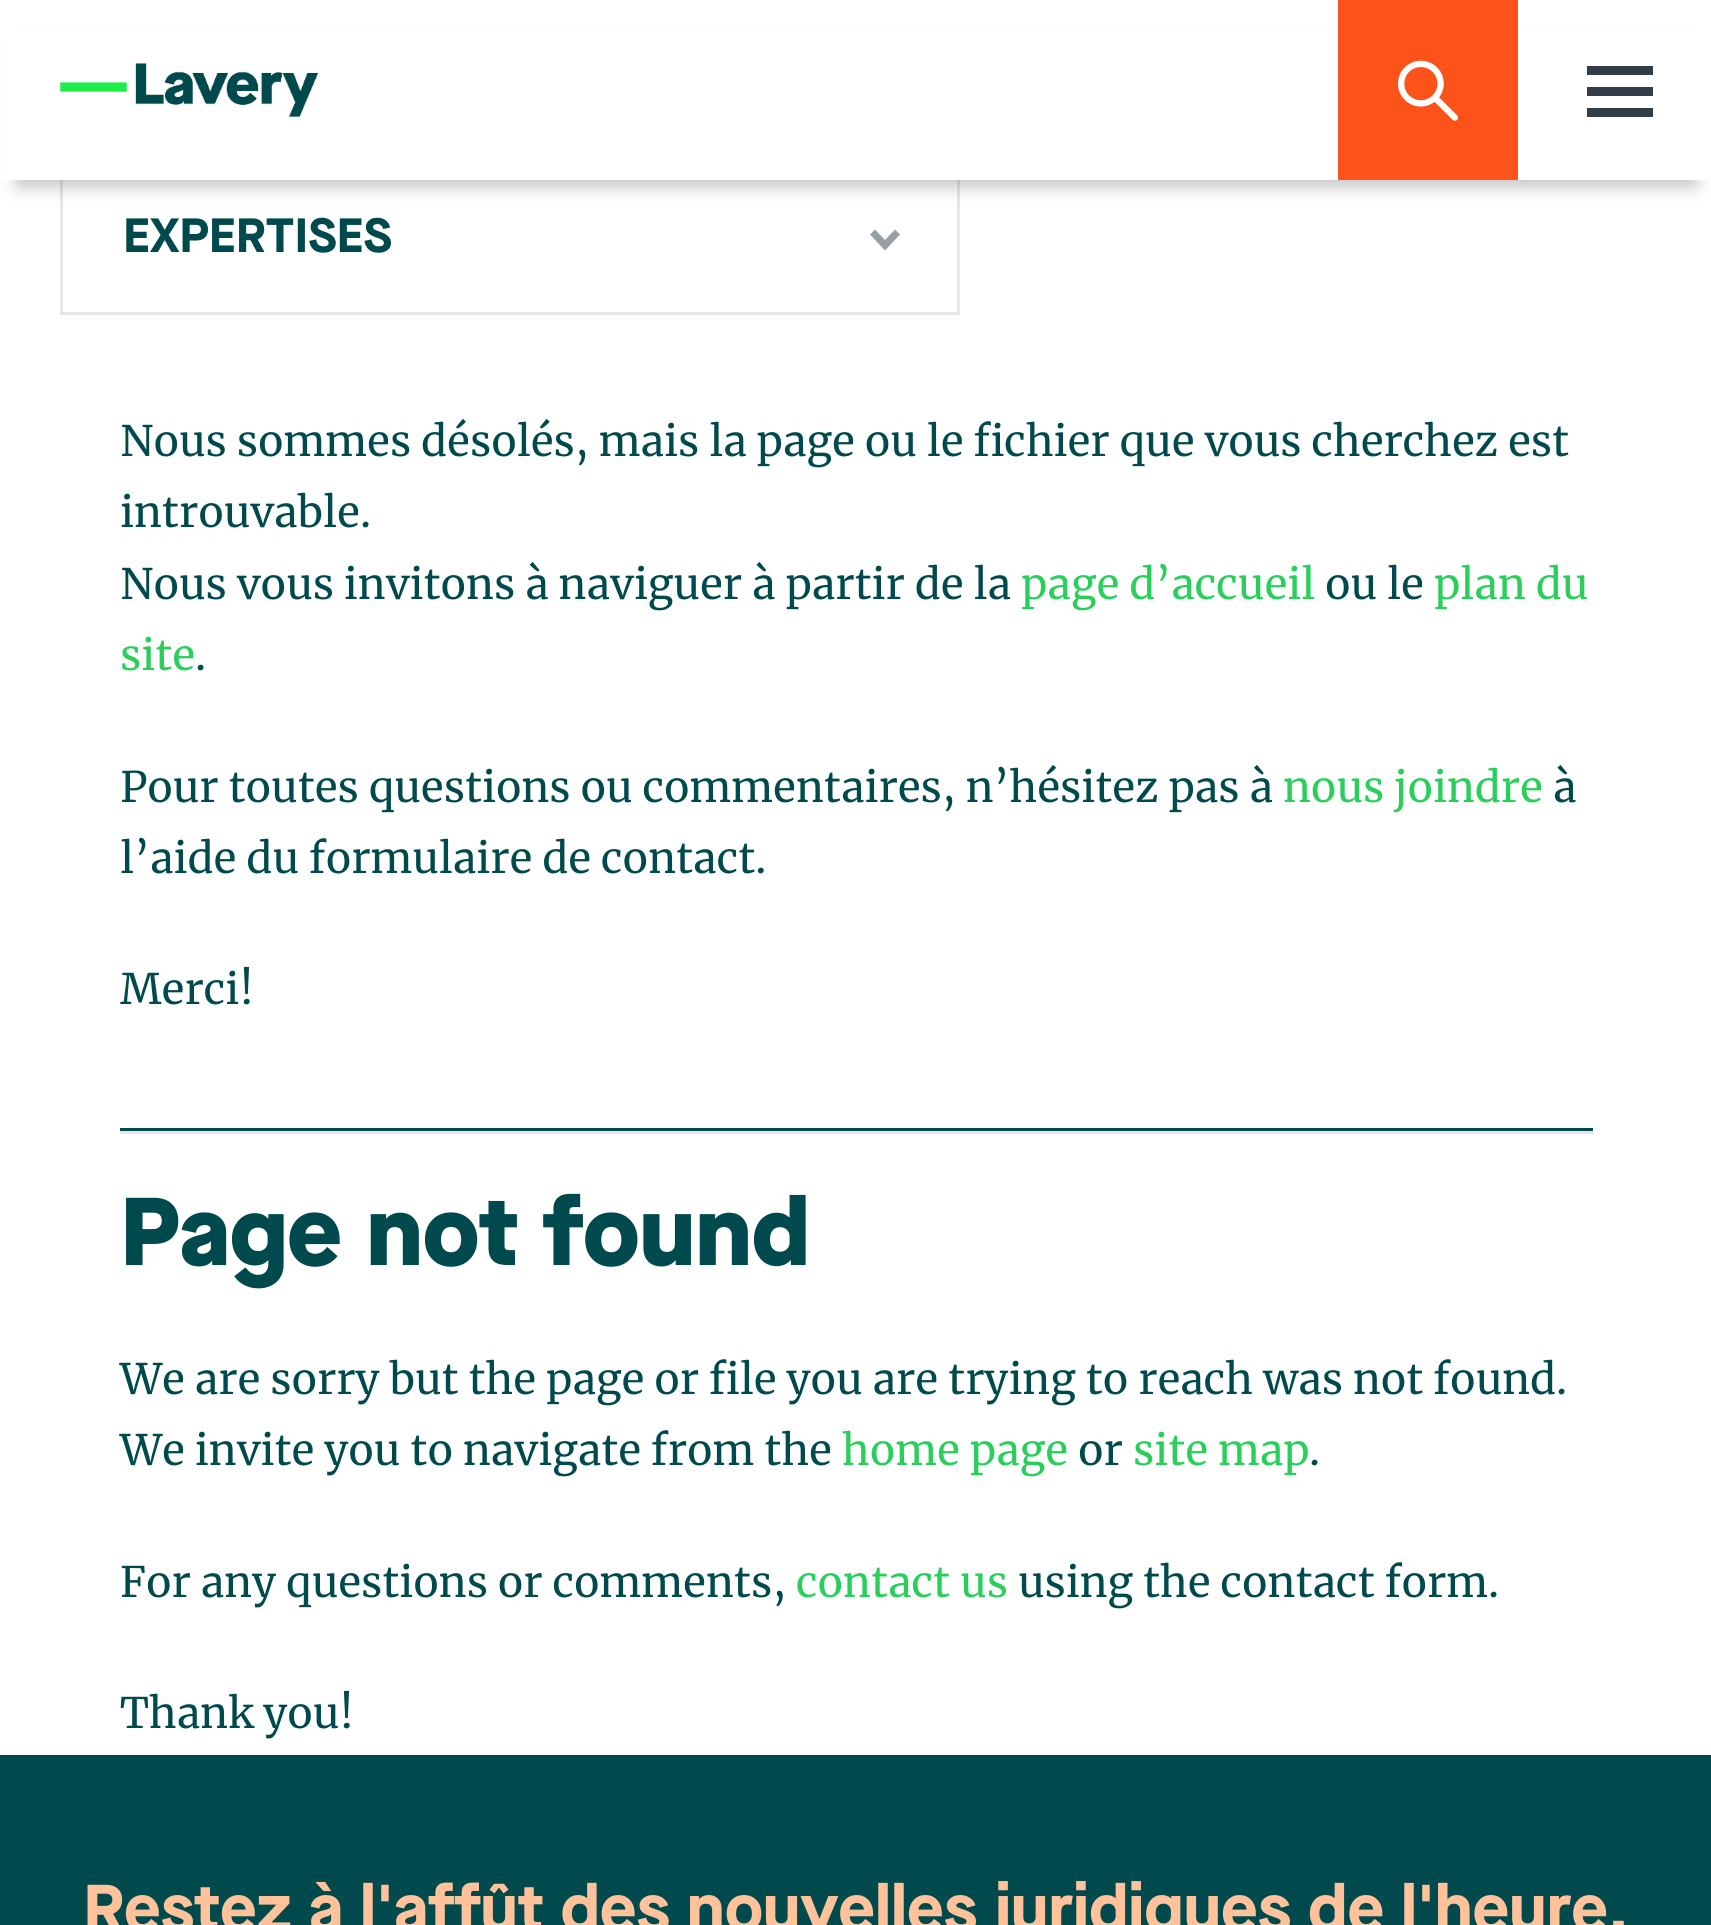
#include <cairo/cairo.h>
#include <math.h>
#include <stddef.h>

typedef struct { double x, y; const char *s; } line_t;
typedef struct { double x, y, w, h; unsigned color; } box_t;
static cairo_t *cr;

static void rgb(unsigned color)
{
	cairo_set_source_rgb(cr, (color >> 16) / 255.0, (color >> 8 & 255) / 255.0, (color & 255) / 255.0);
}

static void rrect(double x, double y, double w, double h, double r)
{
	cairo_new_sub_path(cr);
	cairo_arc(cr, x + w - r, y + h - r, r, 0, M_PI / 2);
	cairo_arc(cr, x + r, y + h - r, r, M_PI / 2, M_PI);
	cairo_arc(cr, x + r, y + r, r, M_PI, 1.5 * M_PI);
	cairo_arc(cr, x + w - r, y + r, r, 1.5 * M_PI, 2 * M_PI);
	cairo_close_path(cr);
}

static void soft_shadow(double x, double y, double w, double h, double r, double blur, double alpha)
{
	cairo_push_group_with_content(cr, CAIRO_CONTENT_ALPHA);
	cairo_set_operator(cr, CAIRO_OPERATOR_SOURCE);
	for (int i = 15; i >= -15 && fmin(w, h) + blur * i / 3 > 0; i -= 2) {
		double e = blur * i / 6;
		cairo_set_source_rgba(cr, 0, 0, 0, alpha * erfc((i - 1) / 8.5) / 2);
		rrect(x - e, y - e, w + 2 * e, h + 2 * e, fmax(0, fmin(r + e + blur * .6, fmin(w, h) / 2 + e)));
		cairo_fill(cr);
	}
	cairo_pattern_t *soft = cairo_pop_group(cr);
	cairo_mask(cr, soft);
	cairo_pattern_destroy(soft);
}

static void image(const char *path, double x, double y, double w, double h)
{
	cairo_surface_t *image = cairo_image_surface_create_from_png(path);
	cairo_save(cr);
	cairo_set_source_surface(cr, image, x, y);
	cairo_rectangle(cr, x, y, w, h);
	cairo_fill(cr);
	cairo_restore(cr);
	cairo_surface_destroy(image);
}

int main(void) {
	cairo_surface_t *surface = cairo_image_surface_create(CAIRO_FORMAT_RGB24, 1711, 1925);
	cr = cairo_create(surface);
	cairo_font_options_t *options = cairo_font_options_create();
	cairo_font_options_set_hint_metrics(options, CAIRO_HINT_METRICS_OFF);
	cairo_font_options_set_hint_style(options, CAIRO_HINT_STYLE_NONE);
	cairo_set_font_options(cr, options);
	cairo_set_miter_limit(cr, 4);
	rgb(0xffffff);
	cairo_paint(cr);
	cairo_rectangle(cr, 61.5, 166.5, 897, 147);
	rgb(0xe6e7e8);
	cairo_set_line_width(cr, 3);
	cairo_stroke(cr);
	rgb(0x000000);
	soft_shadow(18, 42, 1677, 144, 0, 9, 0.25);
	rgb(0xffffff);
	cairo_rectangle(cr, 2, 26, 1709, 154);
	cairo_fill(cr);
	image("img/1.png", 60, 63, 258, 55);
	rgb(0xfb5319);
	cairo_rectangle(cr, 1338, 0, 180, 180);
	cairo_fill(cr);
	image("img/2.png", 1397, 60, 61, 61);
	{
		static const box_t items[] = {
			{1587, 87, 66, 9, 0x313e47},
			{1587, 66, 66, 9, 0x313e47},
			{1587, 108, 66, 9, 0x313e47},
		};
		for (size_t i = 0; i < sizeof items / sizeof *items; i++) {
			rgb(items[i].color);
			cairo_rectangle(cr, items[i].x, items[i].y, items[i].w, items[i].h);
			cairo_fill(cr);
		}
	}
	rgb(0x989fa3);
	cairo_new_path(cr);
	cairo_move_to(cr, 870, 234.5);
	cairo_line_to(cr, 875, 229.5);
	cairo_line_to(cr, 885, 240);
	cairo_line_to(cr, 895, 229.5);
	cairo_line_to(cr, 900, 234.5);
	cairo_line_to(cr, 885, 250.5);
	cairo_close_path(cr);
	cairo_fill(cr);
	{
		static const box_t items[] = {
			{120, 1131, 1473, 3, 0xe6e7e8},
			{120, 1128, 1473, 3, 0x00494c},
			{0, 1755, 1711, 170, 0x00494c},
		};
		for (size_t i = 0; i < sizeof items / sizeof *items; i++) {
			rgb(items[i].color);
			cairo_rectangle(cr, items[i].x, items[i].y, items[i].w, items[i].h);
			cairo_fill(cr);
		}
	}
	cairo_select_font_face(cr, "Maison Neue", CAIRO_FONT_SLANT_NORMAL, CAIRO_FONT_WEIGHT_BOLD);
	cairo_set_font_size(cr, 48);
	cairo_move_to(cr, 123, 252);
	cairo_show_text(cr, "EXPERTISES");
	cairo_select_font_face(cr, "Merriweather", CAIRO_FONT_SLANT_NORMAL, CAIRO_FONT_WEIGHT_NORMAL);
	cairo_set_font_size(cr, 42);
	{
		static const line_t items[] = {
			{120, 456, "Nous sommes désolés, mais la page ou le fichier que vous cherchez est"},
			{120, 527, "introuvable."},
			{120, 599, "Nous vous invitons à naviguer à partir de la"},
		};
		for (size_t i = 0; i < sizeof items / sizeof *items; i++) {
			cairo_move_to(cr, items[i].x, items[i].y);
			cairo_show_text(cr, items[i].s);
		}
	}
	rgb(0x29ce5b);
	cairo_move_to(cr, 1021, 599);
	cairo_show_text(cr, "page d’accueil");
	rgb(0x00494c);
	cairo_move_to(cr, 1325, 599);
	cairo_show_text(cr, "ou le");
	rgb(0x29ce5b);
	cairo_move_to(cr, 1434, 599);
	cairo_show_text(cr, "plan du");
	cairo_move_to(cr, 120, 670);
	cairo_show_text(cr, "site");
	rgb(0x00494c);
	cairo_move_to(cr, 195, 670);
	cairo_show_text(cr, ".");
	cairo_move_to(cr, 120, 802);
	cairo_show_text(cr, "Pour toutes questions ou commentaires, n’hésitez pas à");
	rgb(0x29ce5b);
	cairo_move_to(cr, 1283, 802);
	cairo_show_text(cr, "nous joindre");
	rgb(0x00494c);
	{
		static const line_t items[] = {
			{1553, 802, "à"},
			{120, 873, "l’aide du formulaire de contact."},
			{120, 1004, "Merci!"},
		};
		for (size_t i = 0; i < sizeof items / sizeof *items; i++) {
			cairo_move_to(cr, items[i].x, items[i].y);
			cairo_show_text(cr, items[i].s);
		}
	}
	cairo_select_font_face(cr, "Maison Neue ExtraBold", CAIRO_FONT_SLANT_NORMAL, CAIRO_FONT_WEIGHT_NORMAL);
	cairo_set_font_size(cr, 96);
	cairo_move_to(cr, 120, 1265);
	cairo_show_text(cr, "Page not found");
	cairo_select_font_face(cr, "Merriweather", CAIRO_FONT_SLANT_NORMAL, CAIRO_FONT_WEIGHT_NORMAL);
	cairo_set_font_size(cr, 42);
	cairo_move_to(cr, 120, 1394);
	cairo_show_text(cr, "We are sorry but the page or file you are trying to reach was not found.");
	cairo_move_to(cr, 120, 1465);
	cairo_show_text(cr, "We invite you to navigate from the");
	rgb(0x29ce5b);
	cairo_move_to(cr, 842, 1465);
	cairo_show_text(cr, "home page");
	rgb(0x00494c);
	cairo_move_to(cr, 1078, 1465);
	cairo_show_text(cr, "or");
	rgb(0x29ce5b);
	cairo_move_to(cr, 1133, 1465);
	cairo_show_text(cr, "site map");
	rgb(0x00494c);
	cairo_move_to(cr, 1309, 1465);
	cairo_show_text(cr, ".");
	cairo_move_to(cr, 120, 1597);
	cairo_show_text(cr, "For any questions or comments,");
	rgb(0x29ce5b);
	cairo_move_to(cr, 796, 1597);
	cairo_show_text(cr, "contact us");
	rgb(0x00494c);
	cairo_move_to(cr, 1018, 1597);
	cairo_show_text(cr, "using the contact form.");
	cairo_move_to(cr, 120, 1728);
	cairo_show_text(cr, "Thank you!");
	cairo_select_font_face(cr, "Maison Neue", CAIRO_FONT_SLANT_NORMAL, CAIRO_FONT_WEIGHT_BOLD);
	cairo_set_font_size(cr, 66);
	rgb(0xffc29b);
	cairo_move_to(cr, 83, 1931);
	cairo_show_text(cr, "Restez à l'affût des nouvelles juridiques de l'heure.");
	cairo_surface_write_to_png(surface, "page.png");
	cairo_font_options_destroy(options);
	cairo_destroy(cr);
	cairo_surface_destroy(surface);
	return 0;
}
